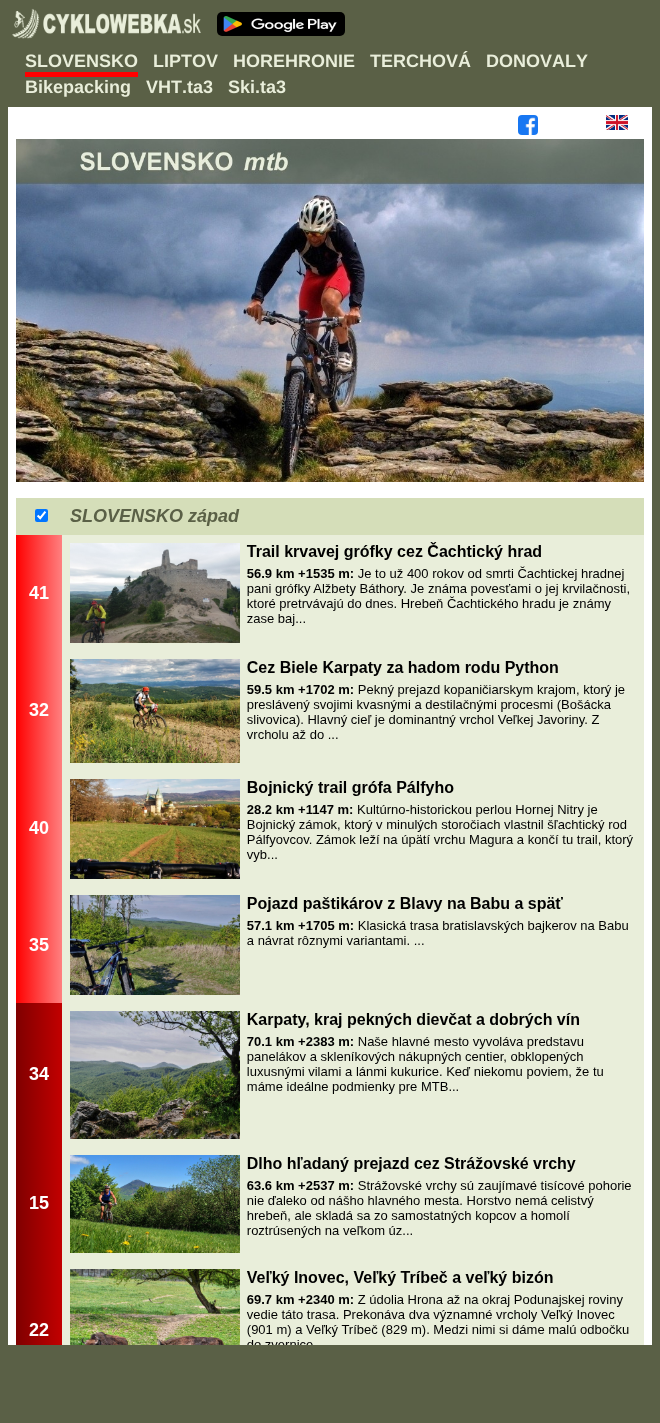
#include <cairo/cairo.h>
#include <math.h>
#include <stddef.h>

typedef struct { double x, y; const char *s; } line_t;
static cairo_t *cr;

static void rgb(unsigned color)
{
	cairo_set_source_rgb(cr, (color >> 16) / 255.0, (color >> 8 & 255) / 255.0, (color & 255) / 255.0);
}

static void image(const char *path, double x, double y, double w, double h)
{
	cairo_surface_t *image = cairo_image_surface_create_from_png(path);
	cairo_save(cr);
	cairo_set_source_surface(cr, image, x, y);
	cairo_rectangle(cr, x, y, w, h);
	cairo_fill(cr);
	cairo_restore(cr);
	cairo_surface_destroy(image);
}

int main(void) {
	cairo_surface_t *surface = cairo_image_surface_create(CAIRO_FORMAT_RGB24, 660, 1423);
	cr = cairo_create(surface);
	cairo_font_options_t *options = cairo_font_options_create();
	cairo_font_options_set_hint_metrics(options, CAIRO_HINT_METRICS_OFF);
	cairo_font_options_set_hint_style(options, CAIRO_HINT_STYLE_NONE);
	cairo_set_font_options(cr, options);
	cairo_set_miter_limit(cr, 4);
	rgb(0x5a6046);
	cairo_paint(cr);
	image("img/1.png", 12, 8, 189, 31);
	image("img/2.png", 217, 12, 128, 24);
	rgb(0xff0000);
	cairo_rectangle(cr, 25, 72, 113, 5);
	cairo_fill(cr);
	image("img/3.png", 8, 107, 644, 1238);
	cairo_select_font_face(cr, "Liberation Sans", CAIRO_FONT_SLANT_NORMAL, CAIRO_FONT_WEIGHT_BOLD);
	cairo_set_font_size(cr, 18);
	rgb(0xe9eeda);
	{
		static const line_t items[] = {
			{25, 67, "SLOVENSKO"},
			{153, 67, "LIPTOV"},
			{233, 67, "HOREHRONIE"},
			{370, 67, "TERCHOVÁ"},
			{486, 67, "DONOVALY"},
			{25, 93, "Bikepacking"},
			{146, 93, "VHT.ta3"},
			{228, 93, "Ski.ta3"},
		};
		for (size_t i = 0; i < sizeof items / sizeof *items; i++) {
			cairo_move_to(cr, items[i].x, items[i].y);
			cairo_show_text(cr, items[i].s);
		}
	}
	cairo_surface_write_to_png(surface, "page.png");
	cairo_font_options_destroy(options);
	cairo_destroy(cr);
	cairo_surface_destroy(surface);
	return 0;
}
